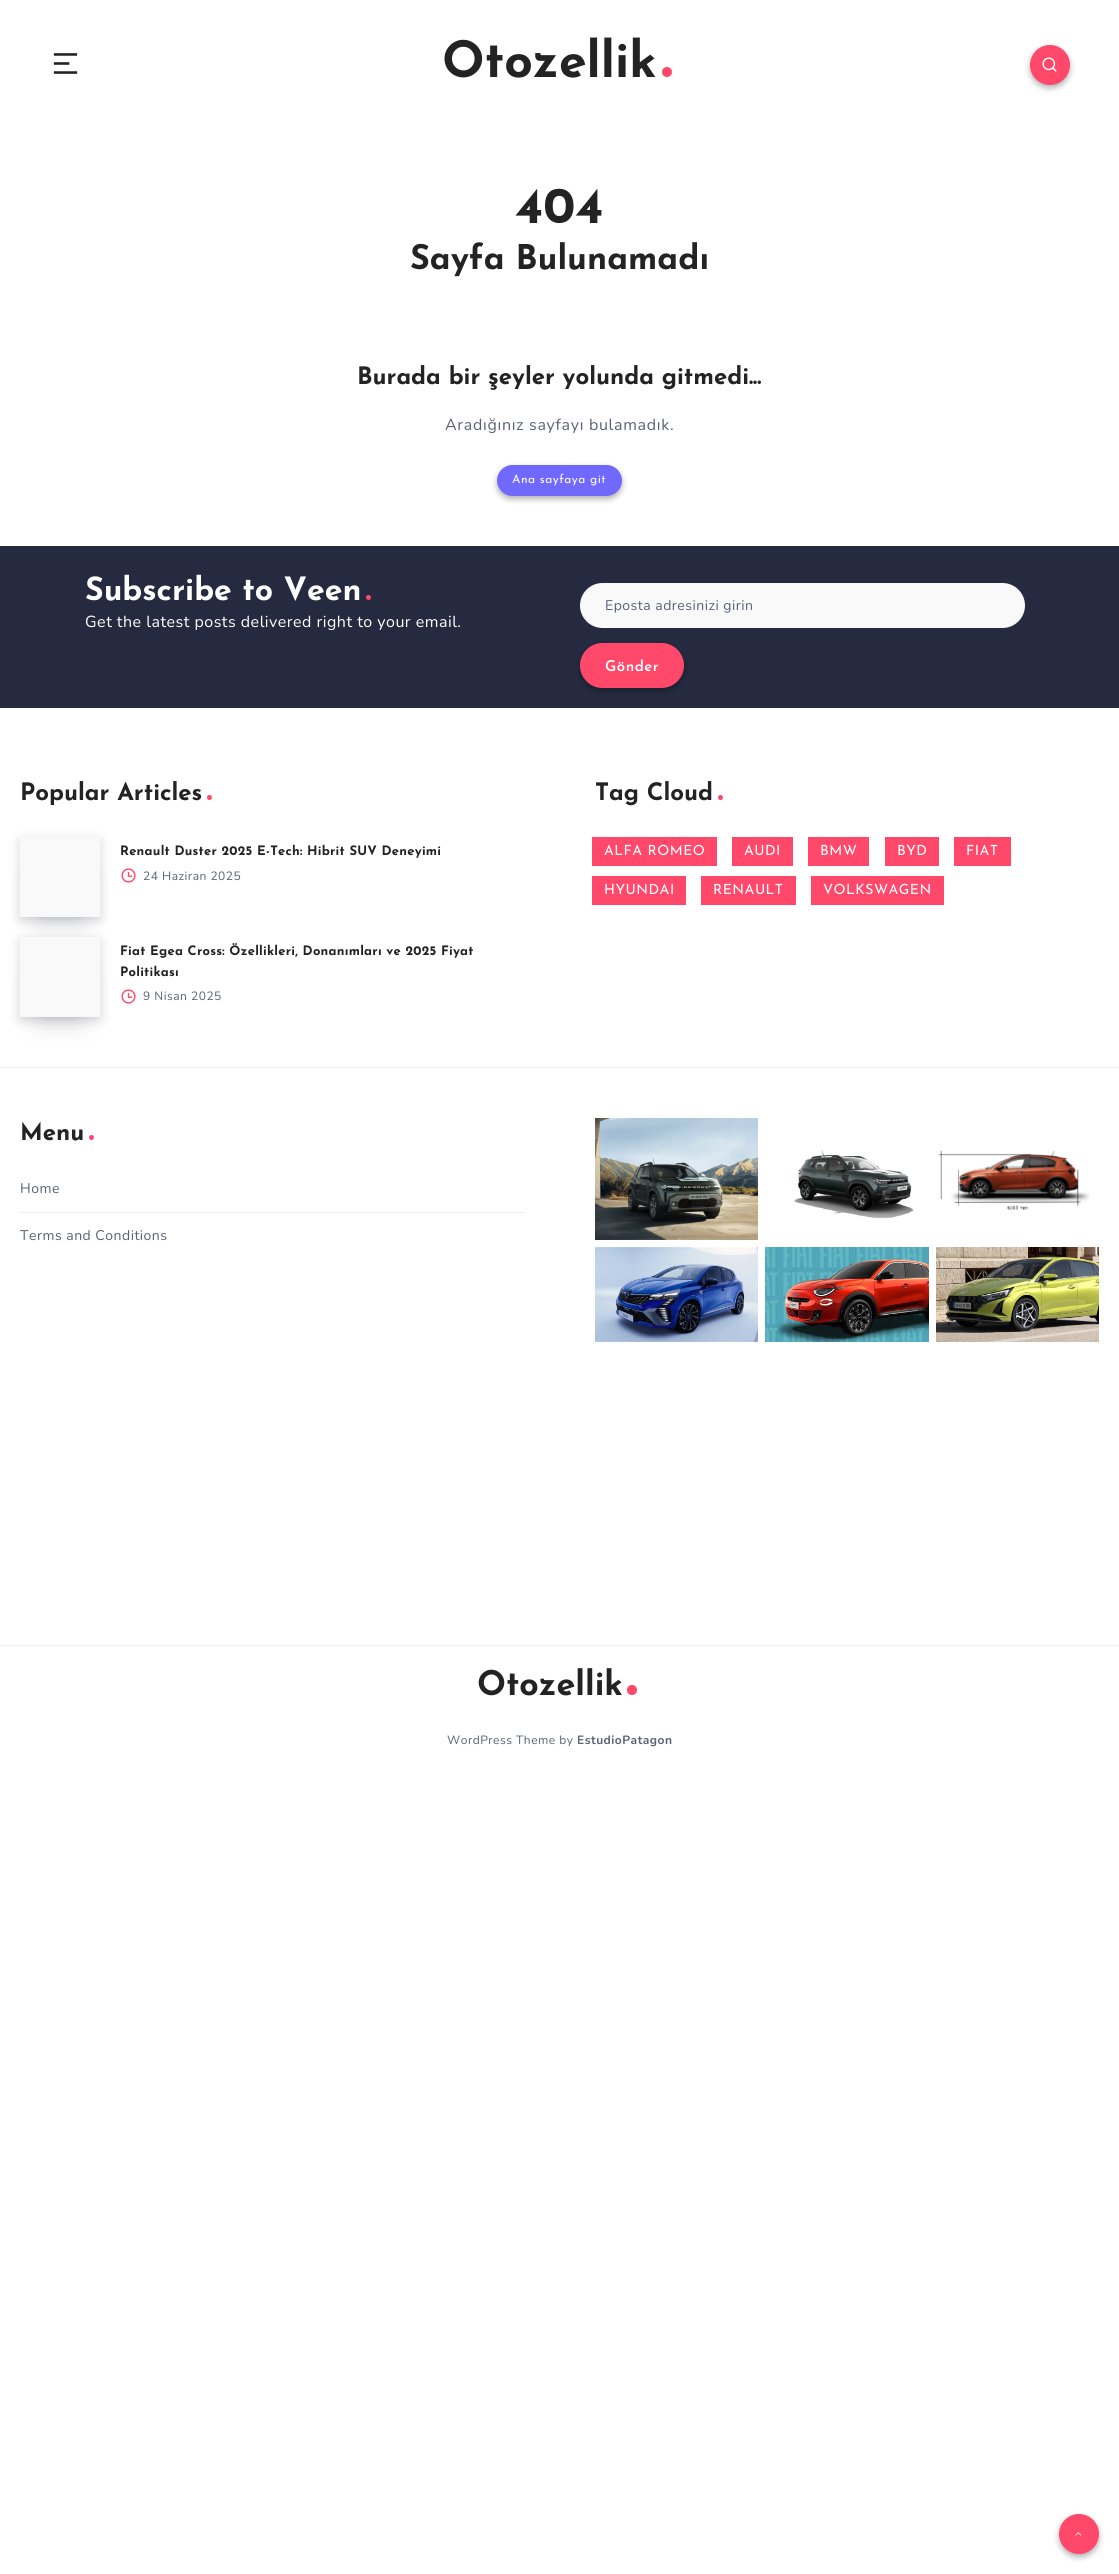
#include <cairo/cairo.h>
#include <math.h>
#include <stddef.h>

typedef struct { double x, y; const char *s; } line_t;
typedef struct { double x, y, w, h; unsigned color; } box_t;
static cairo_t *cr;

static void rgb(unsigned color)
{
	cairo_set_source_rgb(cr, (color >> 16) / 255.0, (color >> 8 & 255) / 255.0, (color & 255) / 255.0);
}

static void tracked(double x, double y, const char *s, double letter, double word)
{
	cairo_move_to(cr, x, y);
	while (*s) {
		char ch[5] = {0};
		int n = 0;
		do ch[n++] = *s++; while ((*s & 0xC0) == 0x80);
		cairo_show_text(cr, ch);
		cairo_rel_move_to(cr, letter + word * (*ch == ' '), 0);
	}
}

static void rrect(double x, double y, double w, double h, double r)
{
	cairo_new_sub_path(cr);
	cairo_arc(cr, x + w - r, y + h - r, r, 0, M_PI / 2);
	cairo_arc(cr, x + r, y + h - r, r, M_PI / 2, M_PI);
	cairo_arc(cr, x + r, y + r, r, M_PI, 1.5 * M_PI);
	cairo_arc(cr, x + w - r, y + r, r, 1.5 * M_PI, 2 * M_PI);
	cairo_close_path(cr);
}

static void soft_shadow(double x, double y, double w, double h, double r, double blur, double alpha)
{
	cairo_push_group_with_content(cr, CAIRO_CONTENT_ALPHA);
	cairo_set_operator(cr, CAIRO_OPERATOR_SOURCE);
	for (int i = 15; i >= -15 && fmin(w, h) + blur * i / 3 > 0; i -= 2) {
		double e = blur * i / 6;
		cairo_set_source_rgba(cr, 0, 0, 0, alpha * erfc((i - 1) / 8.5) / 2);
		rrect(x - e, y - e, w + 2 * e, h + 2 * e, fmax(0, fmin(r + e + blur * .6, fmin(w, h) / 2 + e)));
		cairo_fill(cr);
	}
	cairo_pattern_t *soft = cairo_pop_group(cr);
	cairo_mask(cr, soft);
	cairo_pattern_destroy(soft);
}

static void image(const char *path, double x, double y, double w, double h)
{
	cairo_surface_t *image = cairo_image_surface_create_from_png(path);
	cairo_save(cr);
	cairo_set_source_surface(cr, image, x, y);
	cairo_rectangle(cr, x, y, w, h);
	cairo_fill(cr);
	cairo_restore(cr);
	cairo_surface_destroy(image);
}

int main(void) {
	cairo_surface_t *surface = cairo_image_surface_create(CAIRO_FORMAT_RGB24, 1119, 2574);
	cr = cairo_create(surface);
	cairo_font_options_t *options = cairo_font_options_create();
	cairo_font_options_set_hint_metrics(options, CAIRO_HINT_METRICS_OFF);
	cairo_font_options_set_hint_style(options, CAIRO_HINT_STYLE_NONE);
	cairo_set_font_options(cr, options);
	cairo_set_miter_limit(cr, 4);
	rgb(0xffffff);
	cairo_paint(cr);
	image("img/1.png", 53, 53, 25, 21);
	rgb(0xff486a);
	cairo_arc(cr, 667, 72, 5, 0, 2 * M_PI);
	cairo_fill(cr);
	rgb(0x000000);
	soft_shadow(1030, 48, 40, 40, 20, 3, 0.3);
	rgb(0xff486a);
	cairo_arc(cr, 1050, 65, 20, 0, 2 * M_PI);
	cairo_fill(cr);
	image("img/2.png", 1042, 57, 15, 15);
	rgb(0x000000);
	soft_shadow(497, 468, 125, 31, 15.5, 3, 0.3);
	rgb(0x7169fe);
	rrect(497, 465, 125, 31, 15.5);
	cairo_fill(cr);
	rgb(0x252a40);
	cairo_rectangle(cr, 0, 546, 1119, 162);
	cairo_fill(cr);
	rgb(0xff486a);
	cairo_arc(cr, 368.5, 597.5, 2.5, 0, 2 * M_PI);
	cairo_fill(cr);
	rgb(0xf9f9f9);
	rrect(580, 583, 445, 45, 22.5);
	cairo_fill(cr);
	rgb(0x000000);
	soft_shadow(580, 646, 104, 45, 22.5, 3, 0.3);
	rgb(0xff486a);
	rrect(580, 643, 104, 45, 22.5);
	cairo_fill(cr);
	rgb(0xeeeeee);
	cairo_rectangle(cr, 0, 1067, 1119, 1);
	cairo_fill(cr);
	rgb(0xff486a);
	cairo_arc(cr, 209.5, 797.5, 2.5, 0, 2 * M_PI);
	cairo_fill(cr);
	image("img/3.png", 121, 868, 15, 15);
	rgb(0x070a19);
	soft_shadow(40, 879, 40, 40, 0, 13.5, 0.2);
	soft_shadow(21, 841, 78, 78, 0, 6, 0.2);
	rgb(0xf9f9f9);
	cairo_rectangle(cr, 20, 837, 80, 80);
	cairo_fill(cr);
	image("img/3.png", 121, 989, 15, 15);
	rgb(0x070a19);
	soft_shadow(40, 979, 40, 40, 0, 13.5, 0.2);
	soft_shadow(21, 941, 78, 78, 0, 6, 0.2);
	rgb(0xf9f9f9);
	cairo_rectangle(cr, 20, 937, 80, 80);
	cairo_fill(cr);
	rgb(0xff486a);
	cairo_arc(cr, 720.5, 797.5, 2.5, 0, 2 * M_PI);
	cairo_fill(cr);
	{
		static const box_t items[] = {
			{592, 837, 125, 29, 0xff486a},
			{732, 837, 61, 29, 0xff486a},
			{808, 837, 61, 29, 0xff486a},
			{885, 837, 54, 29, 0xff486a},
			{954, 837, 57, 29, 0xff486a},
			{592, 876, 94, 29, 0xff486a},
			{701, 876, 95, 29, 0xff486a},
			{811, 876, 133, 29, 0xff486a},
			{0, 1645, 1119, 1, 0xeeeeee},
		};
		for (size_t i = 0; i < sizeof items / sizeof *items; i++) {
			rgb(items[i].color);
			cairo_rectangle(cr, items[i].x, items[i].y, items[i].w, items[i].h);
			cairo_fill(cr);
		}
	}
	rgb(0xff486a);
	cairo_arc(cr, 91.5, 1137.5, 2.5, 0, 2 * M_PI);
	cairo_fill(cr);
	rgb(0xeeeeee);
	cairo_rectangle(cr, 20, 1212, 505, 1);
	cairo_fill(cr);
	image("img/4.png", 595, 1118, 163, 122);
	image("img/5.png", 794, 1150, 120, 69);
	image("img/6.png", 938, 1150, 152, 60);
	image("img/7.png", 595, 1247, 163, 95);
	image("img/8.png", 765, 1247, 164, 95);
	image("img/9.png", 936, 1247, 163, 95);
	rgb(0xff486a);
	cairo_arc(cr, 632, 1690, 5, 0, 2 * M_PI);
	cairo_fill(cr);
	rgb(0x000000);
	soft_shadow(1059, 2517, 40, 40, 20, 3, 0.3);
	rgb(0xff486a);
	cairo_arc(cr, 1079, 2534, 20, 0, 2 * M_PI);
	cairo_fill(cr);
	image("img/10.png", 1075, 2532, 6, 4);
	cairo_select_font_face(cr, "Josefin Sans", CAIRO_FONT_SLANT_NORMAL, CAIRO_FONT_WEIGHT_BOLD);
	cairo_set_font_size(cr, 50);
	rgb(0x242323);
	cairo_move_to(cr, 442, 77);
	cairo_show_text(cr, "Otozellik");
	cairo_set_font_size(cr, 51);
	cairo_move_to(cr, 515, 223);
	cairo_show_text(cr, "404");
	cairo_set_font_size(cr, 34);
	cairo_move_to(cr, 410, 269);
	cairo_show_text(cr, "Sayfa Bulunamadı");
	cairo_set_font_size(cr, 24);
	cairo_move_to(cr, 357, 384);
	cairo_show_text(cr, "Burada bir şeyler yolunda gitmedi...");
	cairo_select_font_face(cr, "Nunito", CAIRO_FONT_SLANT_NORMAL, CAIRO_FONT_WEIGHT_NORMAL);
	cairo_set_font_size(cr, 16);
	rgb(0x596172);
	tracked(445, 430, "Aradığınız sayfayı bulamadık.", 0.7, 0);
	cairo_select_font_face(cr, "Josefin Sans", CAIRO_FONT_SLANT_NORMAL, CAIRO_FONT_WEIGHT_NORMAL);
	cairo_set_font_size(cr, 12);
	rgb(0xffffff);
	tracked(512, 483, "Ana sayfaya git", 0.5, 0);
	cairo_select_font_face(cr, "Josefin Sans", CAIRO_FONT_SLANT_NORMAL, CAIRO_FONT_WEIGHT_BOLD);
	cairo_set_font_size(cr, 32);
	cairo_move_to(cr, 85, 600);
	cairo_show_text(cr, "Subscribe to Veen");
	cairo_select_font_face(cr, "Nunito", CAIRO_FONT_SLANT_NORMAL, CAIRO_FONT_WEIGHT_NORMAL);
	cairo_set_font_size(cr, 16);
	tracked(85, 627, "Get the latest posts delivered right to your email.", 0.5, 0);
	cairo_set_font_size(cr, 14);
	rgb(0x596172);
	tracked(605, 610, "Eposta adresinizi girin", 0.5, 0);
	cairo_select_font_face(cr, "Josefin Sans SemiBold", CAIRO_FONT_SLANT_NORMAL, CAIRO_FONT_WEIGHT_NORMAL);
	cairo_set_font_size(cr, 15);
	rgb(0xffffff);
	tracked(605, 671, "Gönder", 0.5, 0);
	cairo_select_font_face(cr, "Josefin Sans", CAIRO_FONT_SLANT_NORMAL, CAIRO_FONT_WEIGHT_BOLD);
	cairo_set_font_size(cr, 24);
	rgb(0x242323);
	cairo_move_to(cr, 20, 800);
	cairo_show_text(cr, "Popular Articles");
	cairo_set_font_size(cr, 13);
	tracked(120, 855, "Renault Duster 2025 E-Tech: Hibrit SUV Deneyimi", 0.25, 0);
	cairo_select_font_face(cr, "Nunito", CAIRO_FONT_SLANT_NORMAL, CAIRO_FONT_WEIGHT_NORMAL);
	cairo_set_font_size(cr, 12);
	rgb(0x596172);
	tracked(143, 880, "24 Haziran 2025", 0.5, 0);
	cairo_select_font_face(cr, "Josefin Sans", CAIRO_FONT_SLANT_NORMAL, CAIRO_FONT_WEIGHT_BOLD);
	cairo_set_font_size(cr, 13);
	rgb(0x242323);
	tracked(120, 955, "Fiat Egea Cross: Özellikleri, Donanımları ve 2025 Fiyat", 0.25, 0);
	tracked(120, 976, "Politikası", 0.25, 0);
	cairo_select_font_face(cr, "Nunito", CAIRO_FONT_SLANT_NORMAL, CAIRO_FONT_WEIGHT_NORMAL);
	cairo_set_font_size(cr, 12);
	rgb(0x596172);
	tracked(143, 1000, "9 Nisan 2025", 0.5, 0);
	cairo_select_font_face(cr, "Josefin Sans", CAIRO_FONT_SLANT_NORMAL, CAIRO_FONT_WEIGHT_BOLD);
	cairo_set_font_size(cr, 24);
	rgb(0x242323);
	cairo_move_to(cr, 595, 800);
	cairo_show_text(cr, "Tag Cloud");
	cairo_select_font_face(cr, "Josefin Sans", CAIRO_FONT_SLANT_NORMAL, CAIRO_FONT_WEIGHT_NORMAL);
	cairo_set_font_size(cr, 14);
	rgb(0xffffff);
	{
		static const line_t items[] = {
			{604, 855, "ALFA ROMEO"},
			{744, 855, "AUDI"},
			{820, 855, "BMW"},
			{897, 855, "BYD"},
			{966, 855, "FIAT"},
			{604, 894, "HYUNDAI"},
			{713, 894, "RENAULT"},
			{823, 894, "VOLKSWAGEN"},
		};
		for (size_t i = 0; i < sizeof items / sizeof *items; i++) {
			tracked(items[i].x, items[i].y, items[i].s, 0.5, 0);
		}
	}
	cairo_select_font_face(cr, "Josefin Sans", CAIRO_FONT_SLANT_NORMAL, CAIRO_FONT_WEIGHT_BOLD);
	cairo_set_font_size(cr, 24);
	rgb(0x242323);
	cairo_move_to(cr, 20, 1140);
	cairo_show_text(cr, "Menu");
	cairo_select_font_face(cr, "Nunito", CAIRO_FONT_SLANT_NORMAL, CAIRO_FONT_WEIGHT_NORMAL);
	cairo_set_font_size(cr, 14);
	rgb(0x596172);
	tracked(20, 1193, "Home", 0.5, 0);
	tracked(20, 1240, "Terms and Conditions", 0.5, 0);
	cairo_select_font_face(cr, "Josefin Sans", CAIRO_FONT_SLANT_NORMAL, CAIRO_FONT_WEIGHT_BOLD);
	cairo_set_font_size(cr, 34);
	rgb(0x242323);
	cairo_move_to(cr, 477, 1695);
	cairo_show_text(cr, "Otozellik");
	cairo_select_font_face(cr, "Nunito", CAIRO_FONT_SLANT_NORMAL, CAIRO_FONT_WEIGHT_NORMAL);
	cairo_set_font_size(cr, 12);
	rgb(0x596172);
	tracked(447, 1744, "WordPress Theme by", 0.5, 0);
	cairo_select_font_face(cr, "Nunito", CAIRO_FONT_SLANT_NORMAL, CAIRO_FONT_WEIGHT_BOLD);
	tracked(577, 1744, "EstudioPatagon", 0.5, 0);
	cairo_surface_write_to_png(surface, "page.png");
	cairo_font_options_destroy(options);
	cairo_destroy(cr);
	cairo_surface_destroy(surface);
	return 0;
}
